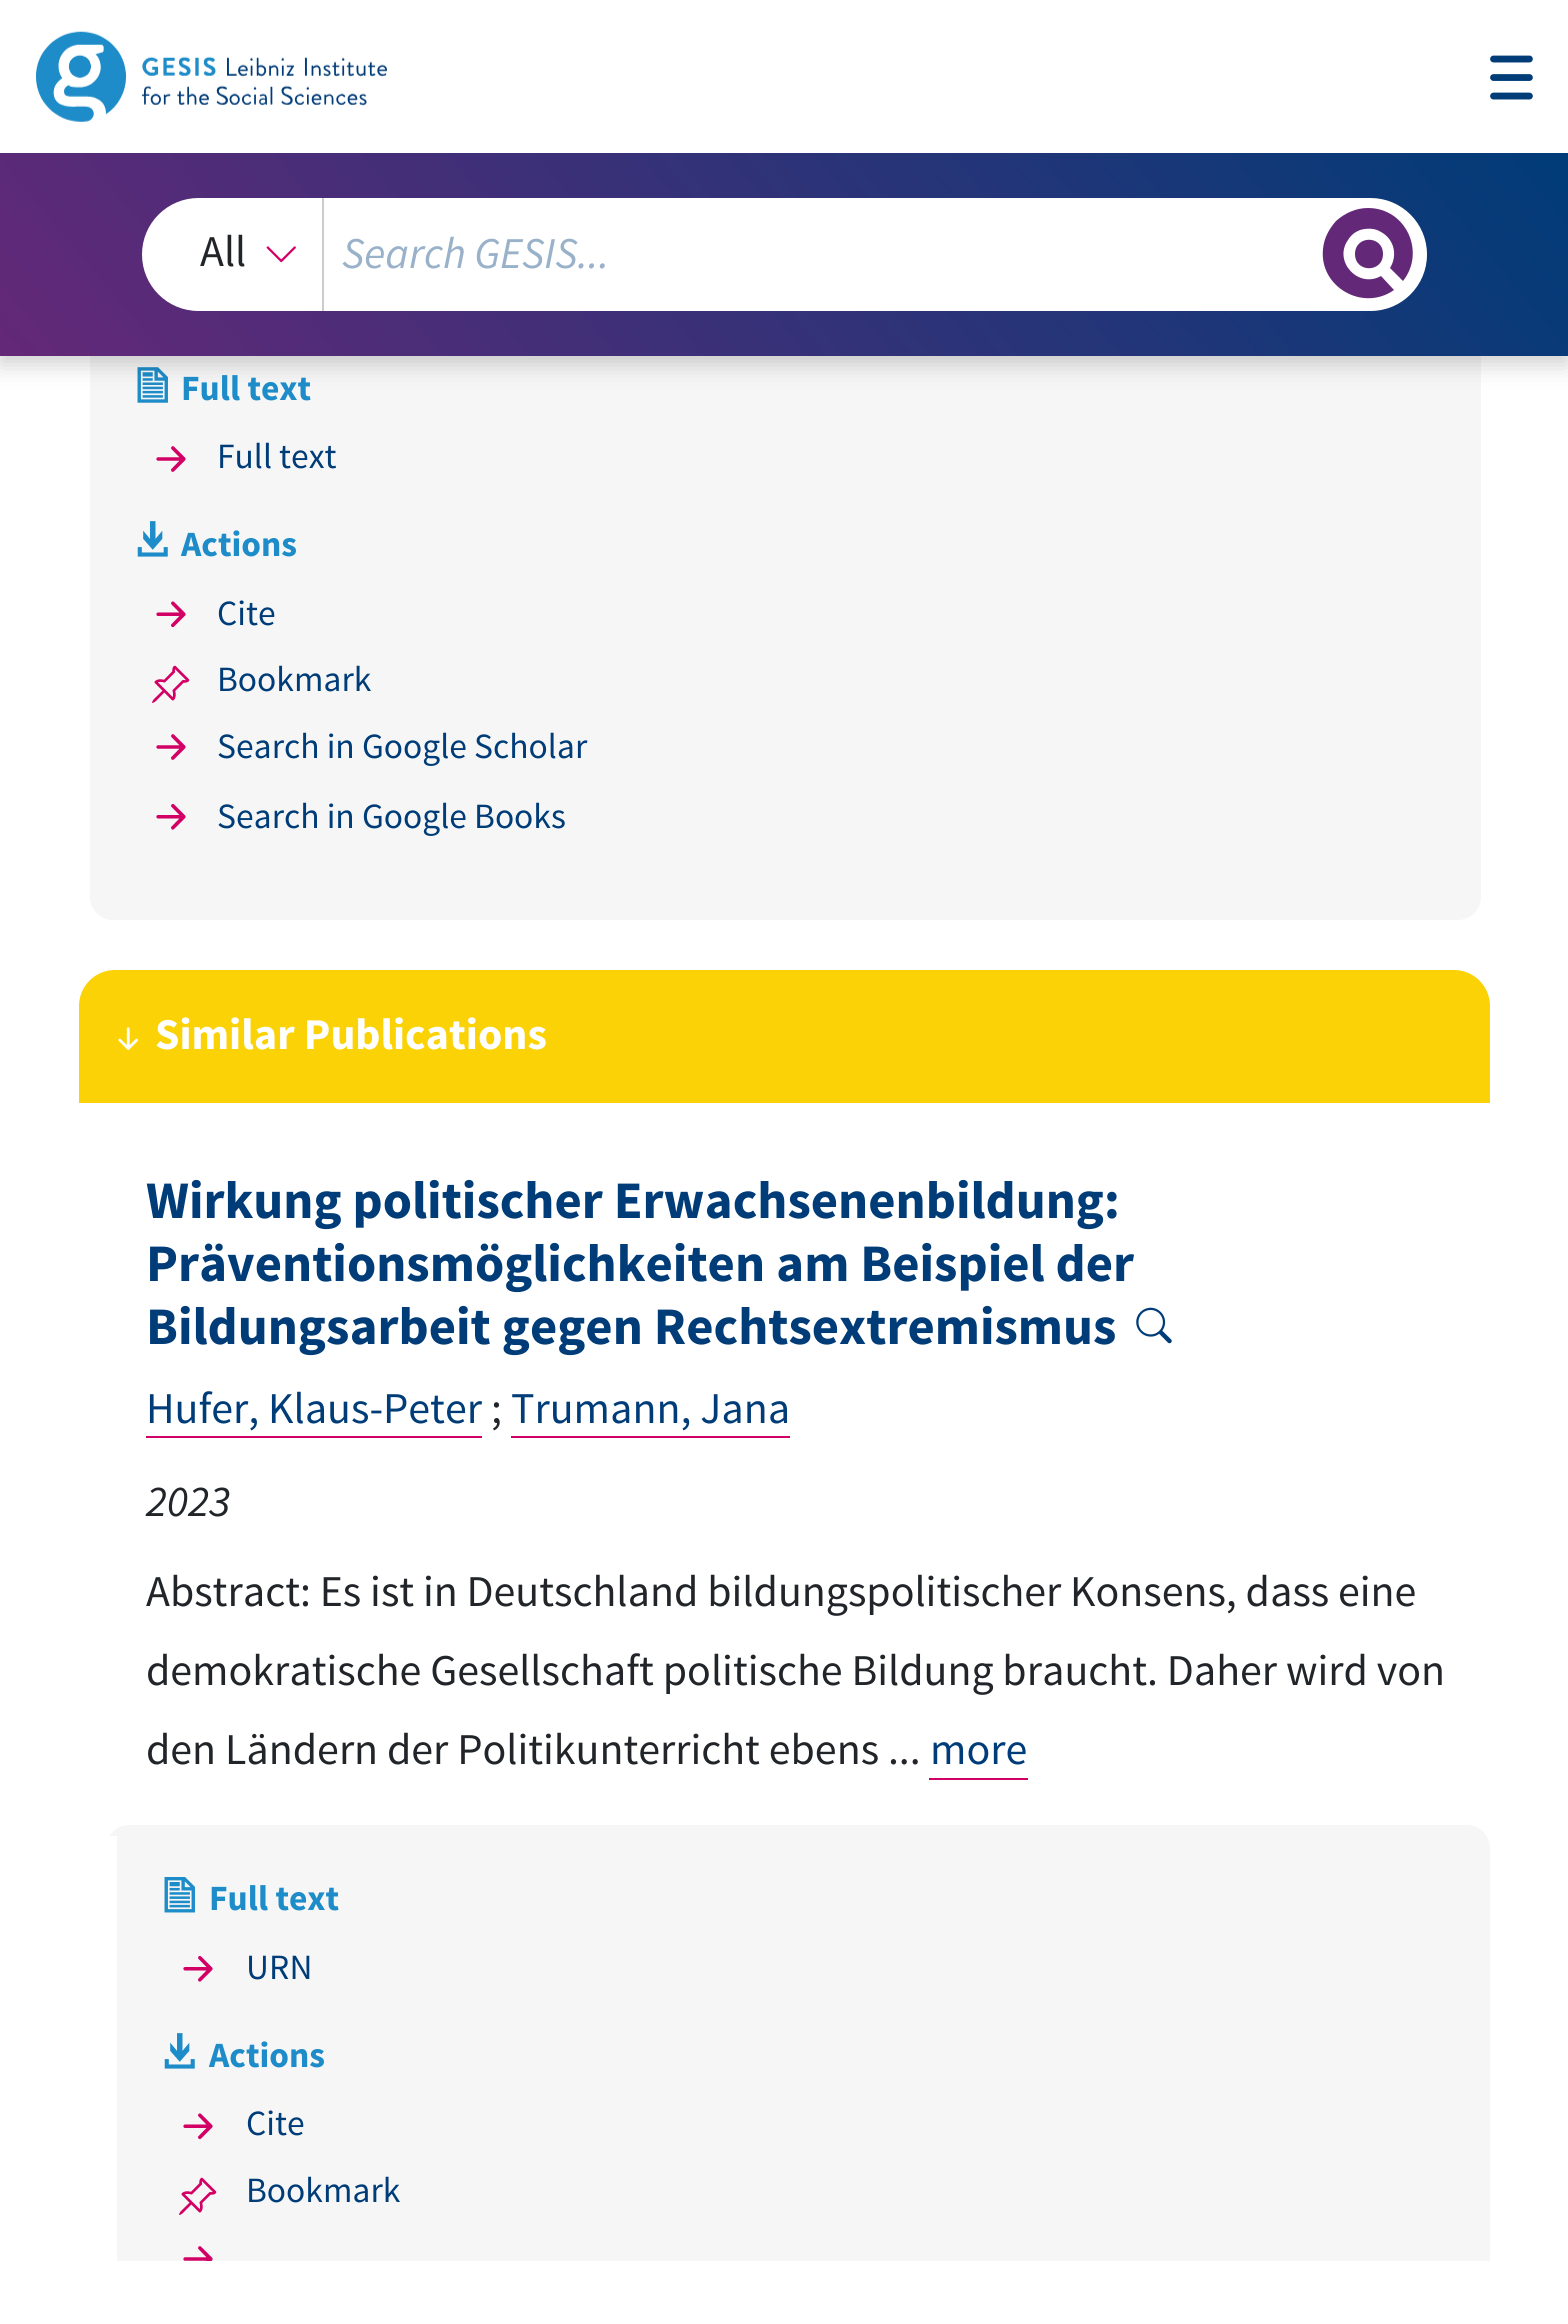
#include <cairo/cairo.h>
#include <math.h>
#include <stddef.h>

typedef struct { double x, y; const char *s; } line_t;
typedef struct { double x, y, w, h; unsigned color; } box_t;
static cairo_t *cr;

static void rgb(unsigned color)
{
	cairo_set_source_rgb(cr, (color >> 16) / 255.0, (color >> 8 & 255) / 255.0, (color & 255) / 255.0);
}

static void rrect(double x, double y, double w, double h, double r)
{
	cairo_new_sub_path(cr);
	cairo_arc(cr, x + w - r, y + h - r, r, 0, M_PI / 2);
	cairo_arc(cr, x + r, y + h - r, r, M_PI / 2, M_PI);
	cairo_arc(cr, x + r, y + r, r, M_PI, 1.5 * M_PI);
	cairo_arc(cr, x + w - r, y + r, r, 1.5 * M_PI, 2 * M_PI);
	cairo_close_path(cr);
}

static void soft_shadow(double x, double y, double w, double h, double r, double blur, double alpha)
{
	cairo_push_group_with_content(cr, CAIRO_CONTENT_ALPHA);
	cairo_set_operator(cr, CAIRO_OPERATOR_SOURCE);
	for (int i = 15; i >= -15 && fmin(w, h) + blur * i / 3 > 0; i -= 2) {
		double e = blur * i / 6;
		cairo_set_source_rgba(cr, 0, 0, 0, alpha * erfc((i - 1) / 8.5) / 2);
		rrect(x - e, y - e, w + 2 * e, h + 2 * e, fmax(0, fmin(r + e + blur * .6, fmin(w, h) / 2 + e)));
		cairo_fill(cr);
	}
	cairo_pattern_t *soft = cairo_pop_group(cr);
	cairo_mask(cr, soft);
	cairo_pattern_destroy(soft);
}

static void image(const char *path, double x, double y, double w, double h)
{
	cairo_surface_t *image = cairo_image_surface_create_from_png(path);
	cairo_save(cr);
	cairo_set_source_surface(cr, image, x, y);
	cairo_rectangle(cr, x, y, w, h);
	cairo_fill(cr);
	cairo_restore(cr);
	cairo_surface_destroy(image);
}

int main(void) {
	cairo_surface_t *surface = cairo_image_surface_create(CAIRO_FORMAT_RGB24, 1568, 2324);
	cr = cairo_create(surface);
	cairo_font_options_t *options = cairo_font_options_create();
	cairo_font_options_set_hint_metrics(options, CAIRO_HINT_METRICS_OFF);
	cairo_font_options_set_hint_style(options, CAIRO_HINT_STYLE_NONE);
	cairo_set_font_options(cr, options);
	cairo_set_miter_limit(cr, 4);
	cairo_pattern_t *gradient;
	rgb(0xffffff);
	cairo_paint(cr);
	rgb(0xf6f6f6);
	rrect(90, 315, 1391, 605, 23);
	cairo_fill(cr);
	image("img/4.png", 137, 367, 31, 36);
	rgb(0x000000);
	soft_shadow(0, 9, 1568, 356, 0, 11, 0.18);
	rgb(0xffffff);
	cairo_rectangle(cr, 0, 0, 1568, 153);
	cairo_fill(cr);
	image("img/1.png", 36, 31, 351, 91);
	image("img/2.png", 1490, 55, 43, 45);
	gradient = cairo_pattern_create_linear(274, 682, 1294, -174);
	cairo_pattern_add_color_stop_rgba(gradient, 0, 0.392, 0.157, 0.471, 1);
	cairo_pattern_add_color_stop_rgba(gradient, 1, 0, 0.235, 0.471, 1);
	cairo_set_source(cr, gradient);
	cairo_pattern_destroy(gradient);
	cairo_rectangle(cr, 0, 153, 1568, 203);
	cairo_fill(cr);
	rgb(0xffffff);
	rrect(142, 198, 1285, 113, 56.5);
	cairo_fill(cr);
	image("img/3.png", 266, 246, 30, 17);
	rgb(0xcccccc);
	cairo_rectangle(cr, 322, 198, 2, 113);
	cairo_fill(cr);
	rgb(0x642878);
	cairo_new_path(cr);
	cairo_move_to(cr, 1383, 254);
	cairo_curve_to(cr, 1383, 273, 1355, 273, 1355, 254);
	cairo_curve_to(cr, 1355, 235, 1383, 235, 1383, 254);
	cairo_close_path(cr);
	cairo_move_to(cr, 1368, 208);
	cairo_curve_to(cr, 1356, 208, 1345, 213, 1336, 221);
	cairo_curve_to(cr, 1329, 229, 1324, 238, 1323, 249);
	cairo_curve_to(cr, 1319, 287, 1363, 312, 1394, 290);
	cairo_line_to(cr, 1381, 276);
	cairo_curve_to(cr, 1358, 289, 1333, 261, 1348, 240);
	cairo_curve_to(cr, 1351, 235, 1355, 232, 1360, 230);
	cairo_curve_to(cr, 1367, 228, 1375, 228, 1381, 232);
	cairo_curve_to(cr, 1394, 239, 1398, 255, 1390, 268);
	cairo_line_to(cr, 1403, 281);
	cairo_curve_to(cr, 1426, 252, 1406, 208, 1368, 208);
	cairo_close_path(cr);
	cairo_move_to(cr, 1403, 281);
	cairo_line_to(cr, 1390, 268);
	cairo_close_path(cr);
	cairo_fill(cr);
	image("img/5.png", 156, 446, 30, 26);
	image("img/6.png", 137, 521, 31, 36);
	image("img/7.png", 156, 601, 30, 27);
	image("img/8.png", 152, 665, 38, 38);
	image("img/5.png", 156, 734, 30, 26);
	image("img/9.png", 156, 804, 30, 26);
	rgb(0xfad205);
	cairo_new_path(cr);
	cairo_move_to(cr, 115, 972.5);
	cairo_line_to(cr, 1454, 972.5);
	cairo_curve_to(cr, 1472.5, 972.5, 1487.5, 987.5, 1487.5, 1006);
	cairo_line_to(cr, 1487.5, 1100.5);
	cairo_line_to(cr, 81.5, 1100.5);
	cairo_line_to(cr, 81.5, 1006);
	cairo_curve_to(cr, 81.5, 987.5, 96.5, 972.5, 115, 972.5);
	cairo_close_path(cr);
	cairo_fill_preserve(cr);
	cairo_set_line_width(cr, 5);
	cairo_stroke(cr);
	image("img/10.png", 118, 1027, 21, 23);
	image("img/11.png", 1136, 1307, 36, 37);
	{
		static const box_t items[] = {
			{146, 1436, 336, 2, 0xd20064},
			{511, 1436, 279, 2, 0xd20064},
			{929, 1778, 99, 2, 0xd20064},
		};
		for (size_t i = 0; i < sizeof items / sizeof *items; i++) {
			rgb(items[i].color);
			cairo_rectangle(cr, items[i].x, items[i].y, items[i].w, items[i].h);
			cairo_fill(cr);
		}
	}
	rgb(0xf6f6f6);
	cairo_new_path(cr);
	cairo_move_to(cr, 129, 1825);
	cairo_line_to(cr, 1467, 1825);
	cairo_curve_to(cr, 1479.5, 1825, 1490, 1835.5, 1490, 1848);
	cairo_line_to(cr, 1490, 2261);
	cairo_line_to(cr, 106, 2261);
	cairo_line_to(cr, 106, 1848);
	cairo_curve_to(cr, 106, 1835.5, 116.5, 1825, 129, 1825);
	cairo_close_path(cr);
	cairo_fill(cr);
	rgb(0xffffff);
	cairo_rectangle(cr, 106, 1836, 11, 425);
	cairo_fill(cr);
	image("img/12.png", 164, 1877, 31, 36);
	image("img/9.png", 183, 1956, 30, 26);
	image("img/6.png", 164, 2033, 31, 36);
	image("img/7.png", 183, 2113, 30, 27);
	image("img/8.png", 179, 2177, 38, 38);
	image("img/13.png", 183, 2246, 30, 15);
	cairo_select_font_face(cr, "Source Sans Pro", CAIRO_FONT_SLANT_NORMAL, CAIRO_FONT_WEIGHT_NORMAL);
	cairo_set_font_size(cr, 43.9);
	rgb(0x212529);
	cairo_move_to(cr, 200, 266);
	cairo_show_text(cr, "All");
	cairo_select_font_face(cr, "Source Sans Pro", CAIRO_FONT_SLANT_ITALIC, CAIRO_FONT_WEIGHT_NORMAL);
	rgb(0x99b1c9);
	cairo_move_to(cr, 342, 268);
	cairo_show_text(cr, "Search GESIS...");
	cairo_select_font_face(cr, "Source Sans Pro", CAIRO_FONT_SLANT_NORMAL, CAIRO_FONT_WEIGHT_BOLD);
	cairo_set_font_size(cr, 35.5);
	rgb(0x1e8cc8);
	cairo_move_to(cr, 181, 400);
	cairo_show_text(cr, "Full text");
	cairo_select_font_face(cr, "Source Sans Pro", CAIRO_FONT_SLANT_NORMAL, CAIRO_FONT_WEIGHT_NORMAL);
	rgb(0x003c78);
	cairo_move_to(cr, 217, 468);
	cairo_show_text(cr, "Full text");
	cairo_select_font_face(cr, "Source Sans Pro", CAIRO_FONT_SLANT_NORMAL, CAIRO_FONT_WEIGHT_BOLD);
	rgb(0x1e8cc8);
	cairo_move_to(cr, 181, 556);
	cairo_show_text(cr, "Actions");
	cairo_select_font_face(cr, "Source Sans Pro", CAIRO_FONT_SLANT_NORMAL, CAIRO_FONT_WEIGHT_NORMAL);
	rgb(0x003c78);
	{
		static const line_t items[] = {
			{217, 625, "Cite"},
			{217, 691, "Bookmark"},
			{217, 758, "Search in Google Scholar"},
			{217, 828, "Search in Google Books"},
		};
		for (size_t i = 0; i < sizeof items / sizeof *items; i++) {
			cairo_move_to(cr, items[i].x, items[i].y);
			cairo_show_text(cr, items[i].s);
		}
	}
	cairo_select_font_face(cr, "Source Sans Pro", CAIRO_FONT_SLANT_NORMAL, CAIRO_FONT_WEIGHT_BOLD);
	cairo_set_font_size(cr, 43.9);
	rgb(0xffffff);
	cairo_move_to(cr, 155, 1049);
	cairo_show_text(cr, "Similar Publications");
	cairo_set_font_size(cr, 52.75);
	rgb(0x003c78);
	{
		static const line_t items[] = {
			{146, 1218, "Wirkung politischer Erwachsenenbildung:"},
			{146, 1281, "Präventionsmöglichkeiten am Beispiel der"},
			{146, 1344, "Bildungsarbeit gegen Rechtsextremismus"},
		};
		for (size_t i = 0; i < sizeof items / sizeof *items; i++) {
			cairo_move_to(cr, items[i].x, items[i].y);
			cairo_show_text(cr, items[i].s);
		}
	}
	cairo_select_font_face(cr, "Source Sans Pro", CAIRO_FONT_SLANT_NORMAL, CAIRO_FONT_WEIGHT_NORMAL);
	cairo_set_font_size(cr, 43.9);
	cairo_move_to(cr, 146, 1423);
	cairo_show_text(cr, "Hufer, Klaus-Peter");
	rgb(0x212529);
	cairo_move_to(cr, 491, 1423);
	cairo_show_text(cr, ";");
	rgb(0x003c78);
	cairo_move_to(cr, 511, 1423);
	cairo_show_text(cr, "Trumann, Jana");
	cairo_select_font_face(cr, "Source Sans Pro", CAIRO_FONT_SLANT_ITALIC, CAIRO_FONT_WEIGHT_NORMAL);
	rgb(0x212529);
	cairo_move_to(cr, 146, 1516);
	cairo_show_text(cr, "2023");
	cairo_select_font_face(cr, "Source Sans Pro", CAIRO_FONT_SLANT_NORMAL, CAIRO_FONT_WEIGHT_NORMAL);
	{
		static const line_t items[] = {
			{146, 1606, "Abstract: Es ist in Deutschland bildungspolitischer Konsens, dass eine"},
			{146, 1685, "demokratische Gesellschaft politische Bildung braucht. Daher wird von"},
			{146, 1764, "den Ländern der Politikunterricht ebens ..."},
		};
		for (size_t i = 0; i < sizeof items / sizeof *items; i++) {
			cairo_move_to(cr, items[i].x, items[i].y);
			cairo_show_text(cr, items[i].s);
		}
	}
	rgb(0x003c78);
	cairo_move_to(cr, 930, 1764);
	cairo_show_text(cr, "more");
	cairo_select_font_face(cr, "Source Sans Pro", CAIRO_FONT_SLANT_NORMAL, CAIRO_FONT_WEIGHT_BOLD);
	cairo_set_font_size(cr, 35.5);
	rgb(0x1e8cc8);
	cairo_move_to(cr, 209, 1910);
	cairo_show_text(cr, "Full text");
	cairo_select_font_face(cr, "Source Sans Pro", CAIRO_FONT_SLANT_NORMAL, CAIRO_FONT_WEIGHT_NORMAL);
	rgb(0x003c78);
	cairo_move_to(cr, 246, 1979);
	cairo_show_text(cr, "URN");
	cairo_select_font_face(cr, "Source Sans Pro", CAIRO_FONT_SLANT_NORMAL, CAIRO_FONT_WEIGHT_BOLD);
	rgb(0x1e8cc8);
	cairo_move_to(cr, 209, 2067);
	cairo_show_text(cr, "Actions");
	cairo_select_font_face(cr, "Source Sans Pro", CAIRO_FONT_SLANT_NORMAL, CAIRO_FONT_WEIGHT_NORMAL);
	rgb(0x003c78);
	cairo_move_to(cr, 246, 2135);
	cairo_show_text(cr, "Cite");
	cairo_move_to(cr, 246, 2202);
	cairo_show_text(cr, "Bookmark");
	cairo_surface_write_to_png(surface, "page.png");
	cairo_font_options_destroy(options);
	cairo_destroy(cr);
	cairo_surface_destroy(surface);
	return 0;
}
